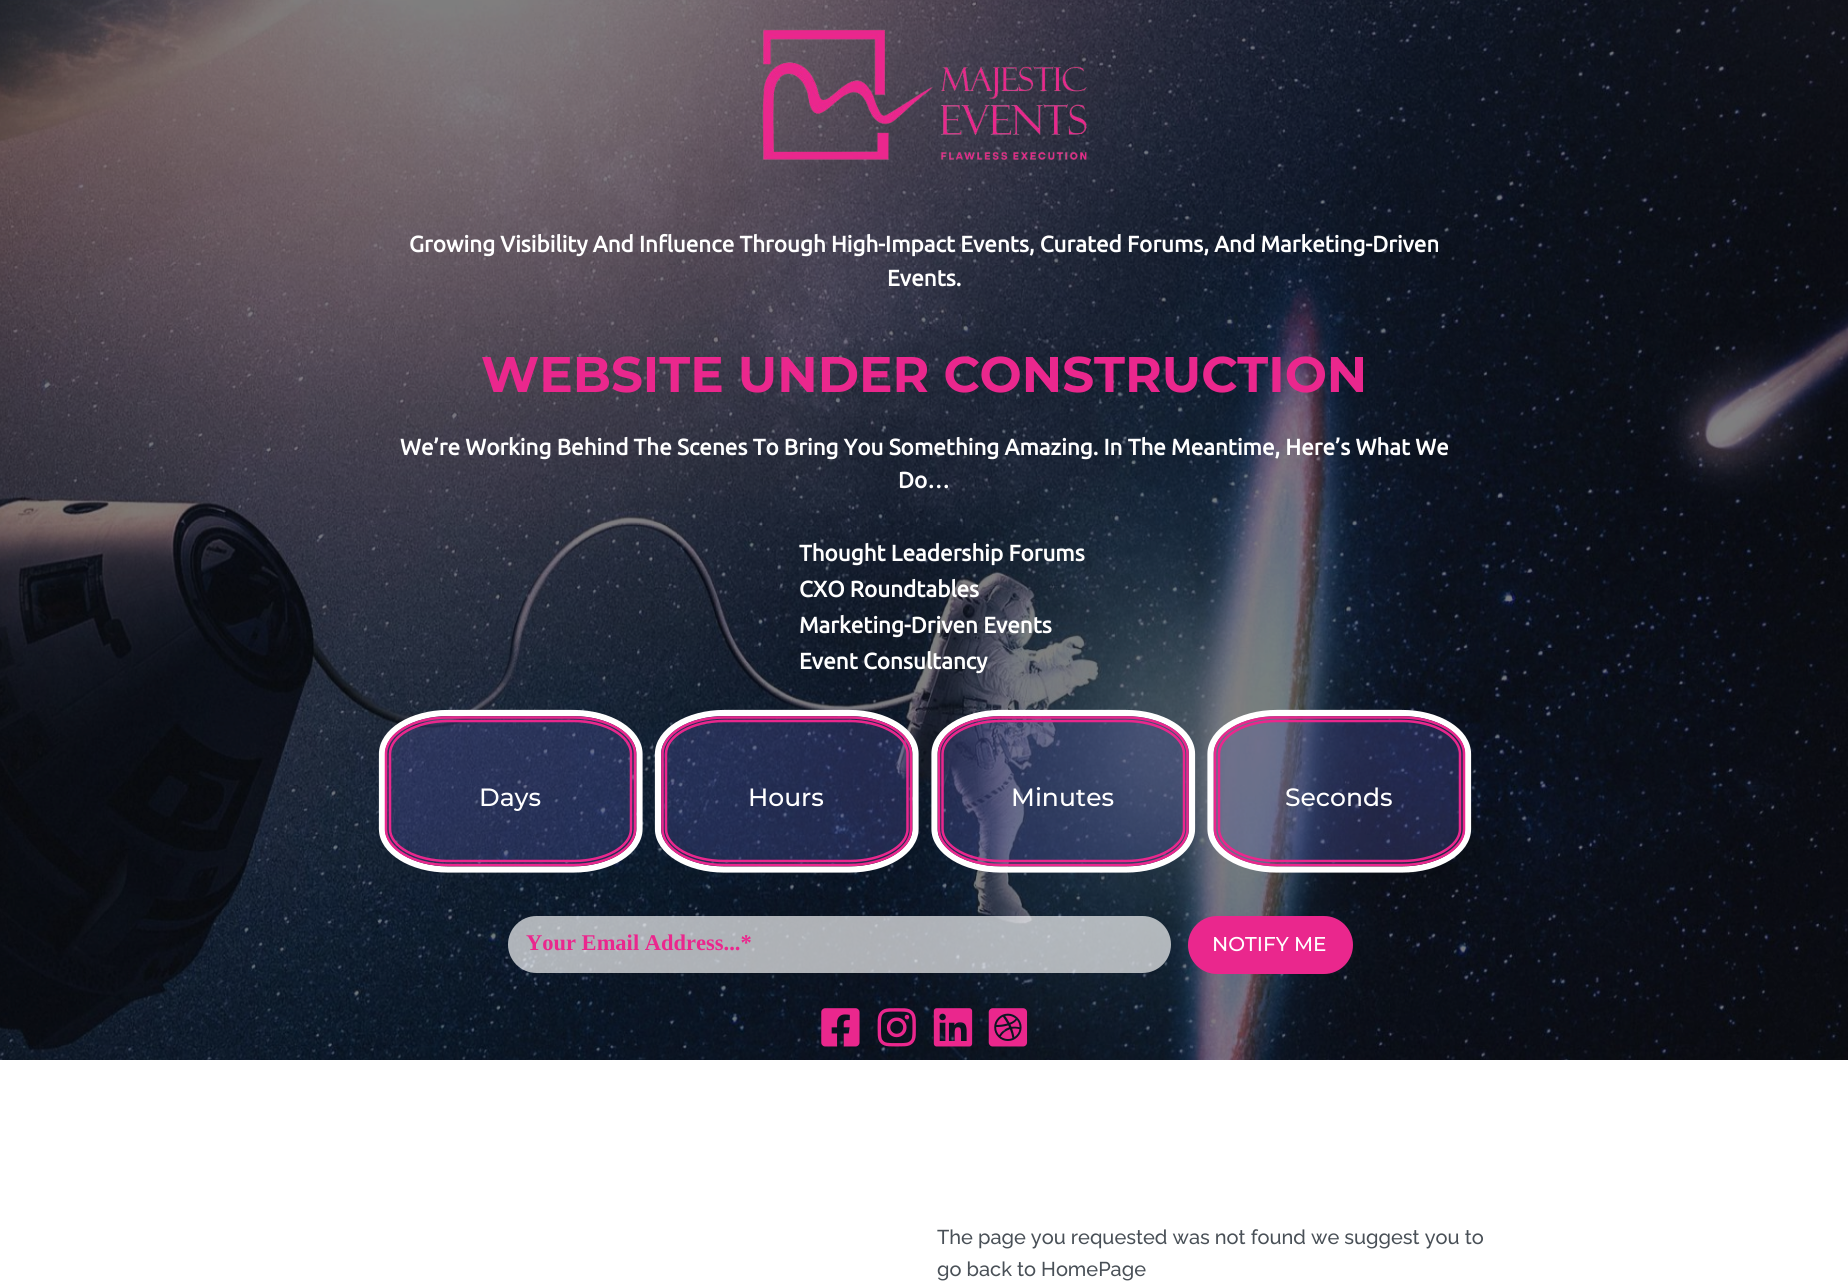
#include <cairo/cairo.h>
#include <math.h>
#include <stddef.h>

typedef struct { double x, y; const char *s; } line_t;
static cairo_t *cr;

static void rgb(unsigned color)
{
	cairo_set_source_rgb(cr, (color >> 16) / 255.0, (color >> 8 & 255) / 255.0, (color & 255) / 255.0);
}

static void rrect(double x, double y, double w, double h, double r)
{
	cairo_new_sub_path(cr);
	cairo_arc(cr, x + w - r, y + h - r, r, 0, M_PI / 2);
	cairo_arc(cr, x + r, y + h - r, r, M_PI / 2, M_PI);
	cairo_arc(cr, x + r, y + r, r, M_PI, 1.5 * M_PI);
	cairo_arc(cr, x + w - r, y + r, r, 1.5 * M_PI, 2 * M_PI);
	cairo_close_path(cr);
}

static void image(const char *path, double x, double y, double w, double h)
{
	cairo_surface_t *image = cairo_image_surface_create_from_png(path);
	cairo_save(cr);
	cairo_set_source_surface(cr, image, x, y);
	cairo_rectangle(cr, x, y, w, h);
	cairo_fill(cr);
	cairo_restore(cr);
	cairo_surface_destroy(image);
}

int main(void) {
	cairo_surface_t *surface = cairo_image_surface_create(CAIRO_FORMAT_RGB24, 1848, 1286);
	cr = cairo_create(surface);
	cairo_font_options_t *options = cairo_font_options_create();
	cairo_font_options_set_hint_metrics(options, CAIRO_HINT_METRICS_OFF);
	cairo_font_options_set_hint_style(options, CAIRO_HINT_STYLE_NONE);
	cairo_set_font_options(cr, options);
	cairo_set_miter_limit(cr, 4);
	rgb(0xffffff);
	cairo_paint(cr);
	image("img/1.png", 0, 0, 1848, 1060);
	image("img/2.png", 762, 29, 325, 131);
	cairo_new_path(cr);
	cairo_move_to(cr, 448, 713);
	cairo_line_to(cr, 573.5, 713);
	cairo_curve_to(cr, 610, 713, 639.5, 731.5, 639.5, 754);
	cairo_line_to(cr, 639.5, 829);
	cairo_curve_to(cr, 639.5, 851, 610, 869.5, 573.5, 869.5);
	cairo_line_to(cr, 448, 869.5);
	cairo_curve_to(cr, 411.5, 869.5, 382, 851, 382, 829);
	cairo_line_to(cr, 382, 754);
	cairo_curve_to(cr, 382, 731.5, 411.5, 713, 448, 713);
	cairo_close_path(cr);
	rgb(0xffffff);
	cairo_set_line_width(cr, 6.2);
	cairo_stroke(cr);
	cairo_set_source_rgba(cr, 0.329, 0.341, 0.651, 0.33);
	cairo_new_path(cr);
	cairo_move_to(cr, 448, 716);
	cairo_line_to(cr, 573, 716);
	cairo_curve_to(cr, 608, 716, 636, 733, 636, 754);
	cairo_line_to(cr, 636, 829);
	cairo_curve_to(cr, 636, 849, 608, 866, 573, 866);
	cairo_line_to(cr, 448, 866);
	cairo_curve_to(cr, 413, 866, 385, 849, 385, 829);
	cairo_line_to(cr, 385, 754);
	cairo_curve_to(cr, 385, 733, 413, 716, 448, 716);
	cairo_close_path(cr);
	cairo_fill(cr);
	cairo_new_path(cr);
	cairo_move_to(cr, 448, 717.5);
	cairo_line_to(cr, 573.5, 717.5);
	cairo_curve_to(cr, 607.5, 717.5, 635, 733.5, 635, 754);
	cairo_line_to(cr, 635, 829);
	cairo_curve_to(cr, 635, 849, 607.5, 865, 573.5, 865);
	cairo_line_to(cr, 448, 865);
	cairo_curve_to(cr, 414, 865, 386, 849, 386, 829);
	cairo_line_to(cr, 386, 754);
	cairo_curve_to(cr, 386, 733.5, 414, 717.5, 448, 717.5);
	cairo_close_path(cr);
	rgb(0xea278d);
	cairo_set_line_width(cr, 2.5);
	cairo_stroke(cr);
	cairo_new_path(cr);
	cairo_move_to(cr, 448, 721);
	cairo_line_to(cr, 573.5, 721);
	cairo_curve_to(cr, 605.5, 721, 631, 736, 631, 754);
	cairo_line_to(cr, 631, 829);
	cairo_curve_to(cr, 631, 846.5, 605.5, 861, 573.5, 861);
	cairo_line_to(cr, 448, 861);
	cairo_curve_to(cr, 416, 861, 390, 846.5, 390, 829);
	cairo_line_to(cr, 390, 754);
	cairo_curve_to(cr, 390, 736, 416, 721, 448, 721);
	cairo_close_path(cr);
	cairo_stroke(cr);
	cairo_new_path(cr);
	cairo_move_to(cr, 724, 713);
	cairo_line_to(cr, 849.5, 713);
	cairo_curve_to(cr, 886, 713, 915.5, 731.5, 915.5, 754);
	cairo_line_to(cr, 915.5, 829);
	cairo_curve_to(cr, 915.5, 851, 886, 869.5, 849.5, 869.5);
	cairo_line_to(cr, 724, 869.5);
	cairo_curve_to(cr, 687.5, 869.5, 658, 851, 658, 829);
	cairo_line_to(cr, 658, 754);
	cairo_curve_to(cr, 658, 731.5, 687.5, 713, 724, 713);
	cairo_close_path(cr);
	rgb(0xffffff);
	cairo_set_line_width(cr, 6.2);
	cairo_stroke(cr);
	cairo_set_source_rgba(cr, 0.329, 0.341, 0.651, 0.33);
	cairo_new_path(cr);
	cairo_move_to(cr, 724, 716);
	cairo_line_to(cr, 850, 716);
	cairo_curve_to(cr, 884, 716, 912, 733, 912, 754);
	cairo_line_to(cr, 912, 829);
	cairo_curve_to(cr, 912, 849, 884, 866, 850, 866);
	cairo_line_to(cr, 724, 866);
	cairo_curve_to(cr, 689, 866, 661, 849, 661, 829);
	cairo_line_to(cr, 661, 754);
	cairo_curve_to(cr, 661, 733, 689, 716, 724, 716);
	cairo_close_path(cr);
	cairo_fill(cr);
	cairo_new_path(cr);
	cairo_move_to(cr, 724, 717.5);
	cairo_line_to(cr, 849.5, 717.5);
	cairo_curve_to(cr, 883.5, 717.5, 911, 733.5, 911, 754);
	cairo_line_to(cr, 911, 829);
	cairo_curve_to(cr, 911, 849, 883.5, 865, 849.5, 865);
	cairo_line_to(cr, 724, 865);
	cairo_curve_to(cr, 690, 865, 662.5, 849, 662.5, 829);
	cairo_line_to(cr, 662.5, 754);
	cairo_curve_to(cr, 662.5, 733.5, 690, 717.5, 724, 717.5);
	cairo_close_path(cr);
	rgb(0xea278d);
	cairo_set_line_width(cr, 2.5);
	cairo_stroke(cr);
	cairo_new_path(cr);
	cairo_move_to(cr, 724, 721);
	cairo_line_to(cr, 849.5, 721);
	cairo_curve_to(cr, 881.5, 721, 907.5, 736, 907.5, 754);
	cairo_line_to(cr, 907.5, 829);
	cairo_curve_to(cr, 907.5, 846.5, 881.5, 861, 849.5, 861);
	cairo_line_to(cr, 724, 861);
	cairo_curve_to(cr, 692, 861, 666, 846.5, 666, 829);
	cairo_line_to(cr, 666, 754);
	cairo_curve_to(cr, 666, 736, 692, 721, 724, 721);
	cairo_close_path(cr);
	cairo_stroke(cr);
	cairo_new_path(cr);
	cairo_move_to(cr, 1000.5, 713);
	cairo_line_to(cr, 1126, 713);
	cairo_curve_to(cr, 1162.5, 713, 1192, 731.5, 1192, 754);
	cairo_line_to(cr, 1192, 829);
	cairo_curve_to(cr, 1192, 851, 1162.5, 869.5, 1126, 869.5);
	cairo_line_to(cr, 1000.5, 869.5);
	cairo_curve_to(cr, 964, 869.5, 934.5, 851, 934.5, 829);
	cairo_line_to(cr, 934.5, 754);
	cairo_curve_to(cr, 934.5, 731.5, 964, 713, 1000.5, 713);
	cairo_close_path(cr);
	rgb(0xffffff);
	cairo_set_line_width(cr, 6.2);
	cairo_stroke(cr);
	cairo_set_source_rgba(cr, 0.329, 0.341, 0.651, 0.33);
	cairo_new_path(cr);
	cairo_move_to(cr, 1000, 716);
	cairo_line_to(cr, 1126, 716);
	cairo_curve_to(cr, 1161, 716, 1189, 733, 1189, 754);
	cairo_line_to(cr, 1189, 829);
	cairo_curve_to(cr, 1189, 849, 1161, 866, 1126, 866);
	cairo_line_to(cr, 1000, 866);
	cairo_curve_to(cr, 966, 866, 938, 849, 938, 829);
	cairo_line_to(cr, 938, 754);
	cairo_curve_to(cr, 938, 733, 966, 716, 1000, 716);
	cairo_close_path(cr);
	cairo_fill(cr);
	cairo_new_path(cr);
	cairo_move_to(cr, 1000.5, 717.5);
	cairo_line_to(cr, 1126, 717.5);
	cairo_curve_to(cr, 1160, 717.5, 1187.5, 733.5, 1187.5, 754);
	cairo_line_to(cr, 1187.5, 829);
	cairo_curve_to(cr, 1187.5, 849, 1160, 865, 1126, 865);
	cairo_line_to(cr, 1000.5, 865);
	cairo_curve_to(cr, 966.5, 865, 939, 849, 939, 829);
	cairo_line_to(cr, 939, 754);
	cairo_curve_to(cr, 939, 733.5, 966.5, 717.5, 1000.5, 717.5);
	cairo_close_path(cr);
	rgb(0xea278d);
	cairo_set_line_width(cr, 2.5);
	cairo_stroke(cr);
	cairo_new_path(cr);
	cairo_move_to(cr, 1000.5, 721);
	cairo_line_to(cr, 1126, 721);
	cairo_curve_to(cr, 1158, 721, 1184, 736, 1184, 754);
	cairo_line_to(cr, 1184, 829);
	cairo_curve_to(cr, 1184, 846.5, 1158, 861, 1126, 861);
	cairo_line_to(cr, 1000.5, 861);
	cairo_curve_to(cr, 968.5, 861, 942.5, 846.5, 942.5, 829);
	cairo_line_to(cr, 942.5, 754);
	cairo_curve_to(cr, 942.5, 736, 968.5, 721, 1000.5, 721);
	cairo_close_path(cr);
	cairo_stroke(cr);
	cairo_new_path(cr);
	cairo_move_to(cr, 1276.5, 713);
	cairo_line_to(cr, 1402, 713);
	cairo_curve_to(cr, 1438.5, 713, 1468, 731.5, 1468, 754);
	cairo_line_to(cr, 1468, 829);
	cairo_curve_to(cr, 1468, 851, 1438.5, 869.5, 1402, 869.5);
	cairo_line_to(cr, 1276.5, 869.5);
	cairo_curve_to(cr, 1240, 869.5, 1210.5, 851, 1210.5, 829);
	cairo_line_to(cr, 1210.5, 754);
	cairo_curve_to(cr, 1210.5, 731.5, 1240, 713, 1276.5, 713);
	cairo_close_path(cr);
	rgb(0xffffff);
	cairo_set_line_width(cr, 6.2);
	cairo_stroke(cr);
	cairo_set_source_rgba(cr, 0.329, 0.341, 0.651, 0.33);
	cairo_new_path(cr);
	cairo_move_to(cr, 1277, 716);
	cairo_line_to(cr, 1402, 716);
	cairo_curve_to(cr, 1437, 716, 1465, 733, 1465, 754);
	cairo_line_to(cr, 1465, 829);
	cairo_curve_to(cr, 1465, 849, 1437, 866, 1402, 866);
	cairo_line_to(cr, 1277, 866);
	cairo_curve_to(cr, 1242, 866, 1214, 849, 1214, 829);
	cairo_line_to(cr, 1214, 754);
	cairo_curve_to(cr, 1214, 733, 1242, 716, 1277, 716);
	cairo_close_path(cr);
	cairo_fill(cr);
	cairo_new_path(cr);
	cairo_move_to(cr, 1276.5, 717.5);
	cairo_line_to(cr, 1402, 717.5);
	cairo_curve_to(cr, 1436, 717.5, 1464, 733.5, 1464, 754);
	cairo_line_to(cr, 1464, 829);
	cairo_curve_to(cr, 1464, 849, 1436, 865, 1402, 865);
	cairo_line_to(cr, 1276.5, 865);
	cairo_curve_to(cr, 1242.5, 865, 1215, 849, 1215, 829);
	cairo_line_to(cr, 1215, 754);
	cairo_curve_to(cr, 1215, 733.5, 1242.5, 717.5, 1276.5, 717.5);
	cairo_close_path(cr);
	rgb(0xea278d);
	cairo_set_line_width(cr, 2.5);
	cairo_stroke(cr);
	cairo_new_path(cr);
	cairo_move_to(cr, 1276.5, 721);
	cairo_line_to(cr, 1402, 721);
	cairo_curve_to(cr, 1434, 721, 1460, 736, 1460, 754);
	cairo_line_to(cr, 1460, 829);
	cairo_curve_to(cr, 1460, 846.5, 1434, 861, 1402, 861);
	cairo_line_to(cr, 1276.5, 861);
	cairo_curve_to(cr, 1244.5, 861, 1219, 846.5, 1219, 829);
	cairo_line_to(cr, 1219, 754);
	cairo_curve_to(cr, 1219, 736, 1244.5, 721, 1276.5, 721);
	cairo_close_path(cr);
	cairo_stroke(cr);
	cairo_set_source_rgba(cr, 1, 1, 1, 0.67);
	rrect(508, 916, 663, 57, 28.5);
	cairo_fill(cr);
	rgb(0xea278d);
	rrect(1188, 916, 165, 58, 29);
	cairo_fill(cr);
	image("img/3.png", 821, 1008, 39, 39);
	image("img/4.png", 877, 1008, 39, 39);
	image("img/5.png", 933, 1008, 40, 39);
	image("img/6.png", 988, 1008, 40, 39);
	cairo_select_font_face(cr, "Ubuntu", CAIRO_FONT_SLANT_NORMAL, CAIRO_FONT_WEIGHT_BOLD);
	cairo_set_font_size(cr, 22.5);
	rgb(0xffffff);
	cairo_move_to(cr, 409, 252);
	cairo_show_text(cr, "Growing Visibility And Influence Through High-Impact Events, Curated Forums, And Marketing-Driven");
	cairo_move_to(cr, 887, 286);
	cairo_show_text(cr, "Events.");
	cairo_select_font_face(cr, "Montserrat", CAIRO_FONT_SLANT_NORMAL, CAIRO_FONT_WEIGHT_BOLD);
	cairo_set_font_size(cr, 50);
	rgb(0xea278d);
	cairo_move_to(cr, 481, 392);
	cairo_show_text(cr, "WEBSITE UNDER CONSTRUCTION");
	cairo_select_font_face(cr, "Ubuntu", CAIRO_FONT_SLANT_NORMAL, CAIRO_FONT_WEIGHT_BOLD);
	cairo_set_font_size(cr, 22.5);
	rgb(0xffffff);
	{
		static const line_t items[] = {
			{400, 455, "We’re Working Behind The Scenes To Bring You Something Amazing. In The Meantime, Here’s What We"},
			{898, 488, "Do…"},
			{799, 561, "Thought Leadership Forums"},
			{799, 597, "CXO Roundtables"},
			{799, 633, "Marketing-Driven Events"},
			{799, 669, "Event Consultancy"},
		};
		for (size_t i = 0; i < sizeof items / sizeof *items; i++) {
			cairo_move_to(cr, items[i].x, items[i].y);
			cairo_show_text(cr, items[i].s);
		}
	}
	cairo_select_font_face(cr, "Montserrat Medium", CAIRO_FONT_SLANT_NORMAL, CAIRO_FONT_WEIGHT_NORMAL);
	cairo_set_font_size(cr, 25);
	{
		static const line_t items[] = {
			{479, 806, "Days"},
			{748, 806, "Hours"},
			{1011, 806, "Minutes"},
			{1285, 806, "Seconds"},
		};
		for (size_t i = 0; i < sizeof items / sizeof *items; i++) {
			cairo_move_to(cr, items[i].x, items[i].y);
			cairo_show_text(cr, items[i].s);
		}
	}
	cairo_select_font_face(cr, "Liberation Serif", CAIRO_FONT_SLANT_NORMAL, CAIRO_FONT_WEIGHT_BOLD);
	cairo_set_font_size(cr, 22.5);
	rgb(0xea278d);
	cairo_move_to(cr, 526, 950);
	cairo_show_text(cr, "Your Email Address...*");
	cairo_select_font_face(cr, "Montserrat Medium", CAIRO_FONT_SLANT_NORMAL, CAIRO_FONT_WEIGHT_NORMAL);
	cairo_set_font_size(cr, 20);
	rgb(0xffffff);
	cairo_move_to(cr, 1212, 951);
	cairo_show_text(cr, "NOTIFY ME");
	cairo_select_font_face(cr, "Raleway Medium", CAIRO_FONT_SLANT_NORMAL, CAIRO_FONT_WEIGHT_NORMAL);
	rgb(0x495057);
	cairo_move_to(cr, 937, 1244);
	cairo_show_text(cr, "The page you requested was not found we suggest you to");
	cairo_move_to(cr, 937, 1276);
	cairo_show_text(cr, "go back to HomePage");
	cairo_surface_write_to_png(surface, "page.png");
	cairo_font_options_destroy(options);
	cairo_destroy(cr);
	cairo_surface_destroy(surface);
	return 0;
}
